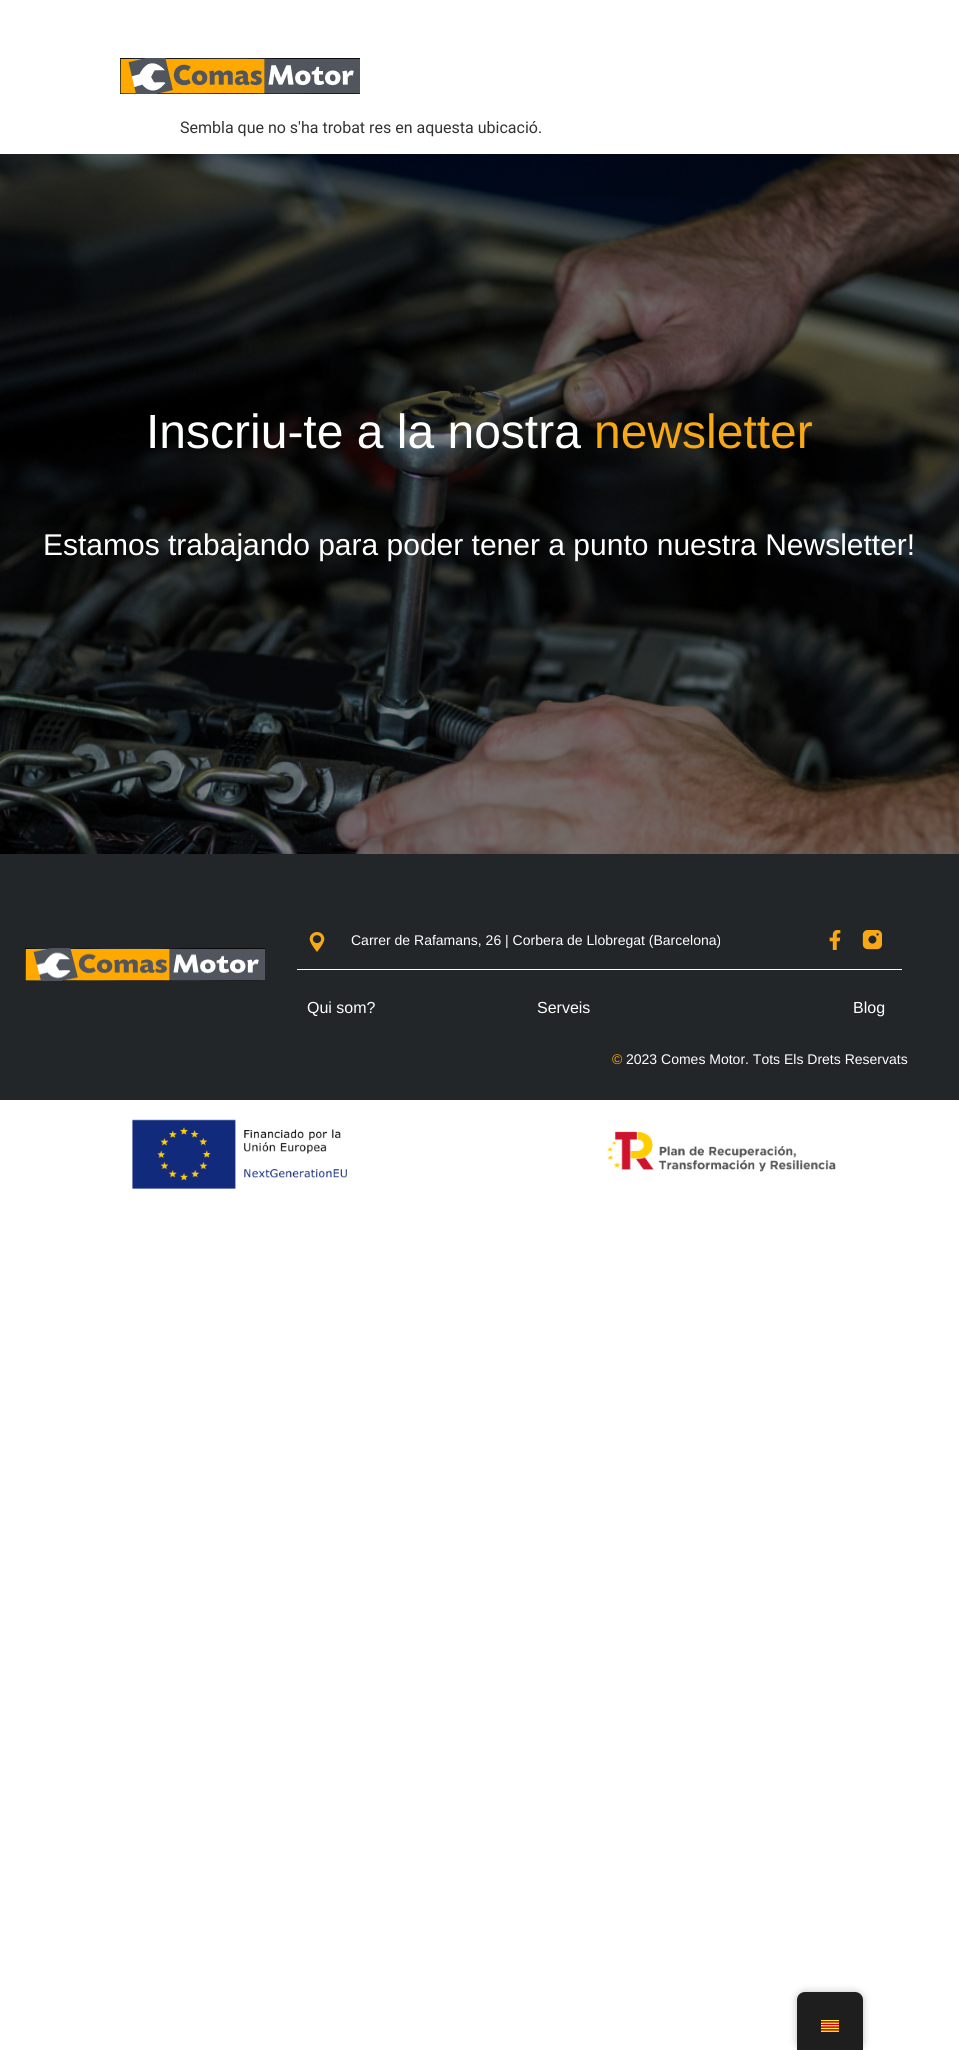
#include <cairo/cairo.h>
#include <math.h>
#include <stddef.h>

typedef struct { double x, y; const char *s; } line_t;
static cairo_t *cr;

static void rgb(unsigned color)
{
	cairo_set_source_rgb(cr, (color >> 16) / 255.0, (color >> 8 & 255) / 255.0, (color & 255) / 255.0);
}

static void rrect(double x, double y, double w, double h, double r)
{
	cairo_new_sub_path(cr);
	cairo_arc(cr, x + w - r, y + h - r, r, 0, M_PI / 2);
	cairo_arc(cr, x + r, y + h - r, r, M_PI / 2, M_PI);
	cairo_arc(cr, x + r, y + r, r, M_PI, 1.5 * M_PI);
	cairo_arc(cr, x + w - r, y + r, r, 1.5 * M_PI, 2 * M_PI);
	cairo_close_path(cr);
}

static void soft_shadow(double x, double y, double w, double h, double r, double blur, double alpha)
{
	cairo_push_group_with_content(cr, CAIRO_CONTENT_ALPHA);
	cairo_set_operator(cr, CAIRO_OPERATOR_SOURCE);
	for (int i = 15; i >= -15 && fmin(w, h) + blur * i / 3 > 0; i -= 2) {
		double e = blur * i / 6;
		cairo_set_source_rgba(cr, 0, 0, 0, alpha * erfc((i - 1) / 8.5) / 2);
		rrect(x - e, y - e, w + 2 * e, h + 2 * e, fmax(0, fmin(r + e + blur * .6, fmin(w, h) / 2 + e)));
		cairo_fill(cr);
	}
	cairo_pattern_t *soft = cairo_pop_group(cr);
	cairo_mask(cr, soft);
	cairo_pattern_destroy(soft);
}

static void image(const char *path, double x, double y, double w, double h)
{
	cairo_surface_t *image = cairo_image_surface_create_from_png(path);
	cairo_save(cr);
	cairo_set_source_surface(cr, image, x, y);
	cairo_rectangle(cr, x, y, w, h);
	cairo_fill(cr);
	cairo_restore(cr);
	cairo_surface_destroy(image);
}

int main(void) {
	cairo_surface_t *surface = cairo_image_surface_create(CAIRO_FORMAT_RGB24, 959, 2050);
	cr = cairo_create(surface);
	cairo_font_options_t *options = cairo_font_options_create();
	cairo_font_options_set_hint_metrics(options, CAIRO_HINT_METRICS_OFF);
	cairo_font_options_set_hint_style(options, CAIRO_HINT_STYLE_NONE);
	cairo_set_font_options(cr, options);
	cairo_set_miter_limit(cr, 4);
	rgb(0xffffff);
	cairo_paint(cr);
	image("img/1.png", 120, 58, 240, 36);
	image("img/2.png", 0, 154, 959, 700);
	rgb(0x232628);
	cairo_rectangle(cr, 0, 854, 959, 246);
	cairo_fill(cr);
	image("img/3.png", 829, 930, 12, 20);
	image("img/4.png", 862, 930, 20, 20);
	rgb(0xffffff);
	cairo_rectangle(cr, 297, 969, 605, 1);
	cairo_fill(cr);
	image("img/5.png", 309, 932, 16, 20);
	image("img/6.png", 25, 948, 240, 33);
	image("img/7.png", 132, 1119, 215, 70);
	image("img/8.png", 607, 1131, 229, 41);
	rgb(0x000000);
	soft_shadow(797, 1992, 66, 58, 8, 4, 0.25);
	rgb(0x1e1e1e);
	cairo_new_path(cr);
	cairo_move_to(cr, 805, 1992);
	cairo_line_to(cr, 855, 1992);
	cairo_curve_to(cr, 859.5, 1992, 863, 1995.5, 863, 2000);
	cairo_line_to(cr, 863, 2050);
	cairo_line_to(cr, 797, 2050);
	cairo_line_to(cr, 797, 2000);
	cairo_curve_to(cr, 797, 1995.5, 800.5, 1992, 805, 1992);
	cairo_close_path(cr);
	cairo_fill(cr);
	image("img/9.png", 821, 2020, 18, 12);
	cairo_select_font_face(cr, "Roboto", CAIRO_FONT_SLANT_NORMAL, CAIRO_FONT_WEIGHT_NORMAL);
	cairo_set_font_size(cr, 16);
	rgb(0x333333);
	cairo_move_to(cr, 180, 133);
	cairo_show_text(cr, "Sembla que no s'ha trobat res en aquesta ubicació.");
	cairo_select_font_face(cr, "Liberation Sans", CAIRO_FONT_SLANT_NORMAL, CAIRO_FONT_WEIGHT_NORMAL);
	cairo_set_font_size(cr, 48);
	rgb(0xffffff);
	cairo_move_to(cr, 146, 448);
	cairo_show_text(cr, "Inscriu-te a la nostra");
	rgb(0xf8a815);
	cairo_move_to(cr, 594, 448);
	cairo_show_text(cr, "newsletter");
	cairo_set_font_size(cr, 30);
	rgb(0xffffff);
	cairo_move_to(cr, 43, 555);
	cairo_show_text(cr, "Estamos trabajando para poder tener a punto nuestra Newsletter!");
	cairo_set_font_size(cr, 14);
	cairo_move_to(cr, 351, 945);
	cairo_show_text(cr, "Carrer de Rafamans, 26 | Corbera de Llobregat (Barcelona)");
	cairo_set_font_size(cr, 16);
	{
		static const line_t items[] = {
			{307, 1013, "Qui som?"},
			{537, 1013, "Serveis"},
			{853, 1013, "Blog"},
		};
		for (size_t i = 0; i < sizeof items / sizeof *items; i++) {
			cairo_move_to(cr, items[i].x, items[i].y);
			cairo_show_text(cr, items[i].s);
		}
	}
	cairo_set_font_size(cr, 14);
	rgb(0xf8a815);
	cairo_move_to(cr, 612, 1064);
	cairo_show_text(cr, "©");
	rgb(0xffffff);
	cairo_move_to(cr, 626, 1064);
	cairo_show_text(cr, "2023 Comes Motor. Tots Els Drets Reservats");
	cairo_surface_write_to_png(surface, "page.png");
	cairo_font_options_destroy(options);
	cairo_destroy(cr);
	cairo_surface_destroy(surface);
	return 0;
}
